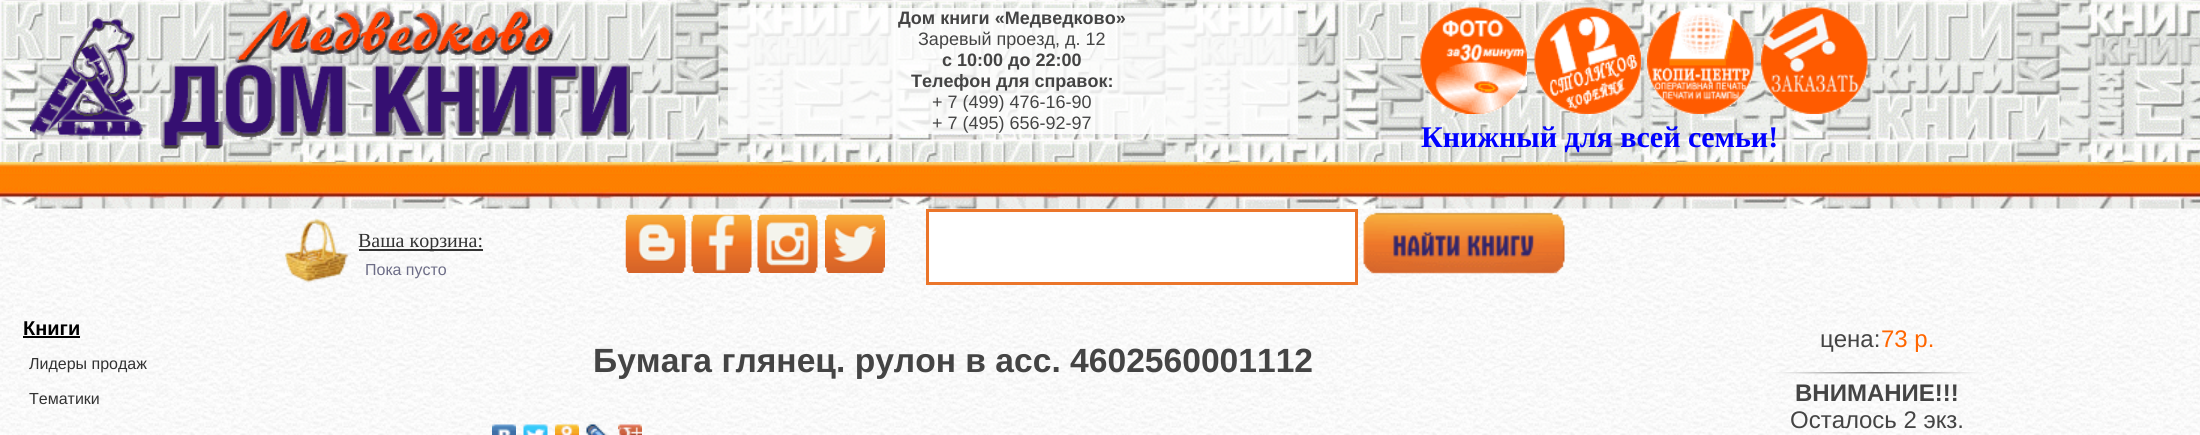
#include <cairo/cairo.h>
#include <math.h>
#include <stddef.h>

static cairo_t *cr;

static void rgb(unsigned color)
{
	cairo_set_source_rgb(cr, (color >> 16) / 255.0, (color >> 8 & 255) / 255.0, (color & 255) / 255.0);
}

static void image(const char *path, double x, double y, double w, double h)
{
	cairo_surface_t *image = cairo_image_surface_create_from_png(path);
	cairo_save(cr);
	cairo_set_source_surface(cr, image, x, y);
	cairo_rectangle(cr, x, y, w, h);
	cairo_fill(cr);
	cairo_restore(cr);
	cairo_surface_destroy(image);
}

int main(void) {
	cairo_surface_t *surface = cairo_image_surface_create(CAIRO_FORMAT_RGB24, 2200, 435);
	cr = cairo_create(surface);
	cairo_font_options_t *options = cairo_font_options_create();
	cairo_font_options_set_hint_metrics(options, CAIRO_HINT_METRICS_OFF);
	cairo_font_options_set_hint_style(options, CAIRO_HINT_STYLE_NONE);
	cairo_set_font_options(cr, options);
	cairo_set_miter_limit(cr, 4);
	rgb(0xffffff);
	cairo_paint(cr);
	image("img/1.png", 0, 208, 2200, 227);
	image("img/2.png", 0, 0, 2200, 162);
	image("img/3.png", 30, 7, 600, 142);
	cairo_set_source_rgba(cr, 1, 1, 1, 0.8);
	cairo_rectangle(cr, 728, 8, 570, 126);
	cairo_fill(cr);
	image("img/4.png", 1420, 7, 107, 107);
	image("img/5.png", 1534, 7, 107, 107);
	image("img/6.png", 1647, 7, 107, 107);
	image("img/7.png", 1761, 7, 107, 107);
	image("img/8.png", 0, 162, 2200, 47);
	image("img/9.png", 284, 218, 65, 65);
	rgb(0x333333);
	cairo_rectangle(cr, 359, 249, 124, 2);
	cairo_fill(cr);
	image("img/10.png", 625, 214, 61, 59);
	image("img/11.png", 691, 214, 61, 59);
	image("img/12.png", 757, 214, 61, 59);
	image("img/13.png", 825, 214, 60, 59);
	rgb(0xffffff);
	cairo_rectangle(cr, 927.5, 210.5, 429, 73);
	cairo_fill_preserve(cr);
	rgb(0xeb752a);
	cairo_set_line_width(cr, 3);
	cairo_stroke(cr);
	image("img/14.png", 1363, 212, 202, 62);
	rgb(0x000000);
	cairo_rectangle(cr, 23, 336, 57, 2);
	cairo_fill(cr);
	image("img/15.png", 492, 424, 24, 11);
	image("img/16.png", 523, 424, 25, 11);
	image("img/17.png", 555, 424, 24, 11);
	image("img/18.png", 586, 424, 21, 11);
	image("img/19.png", 618, 424, 24, 11);
	image("img/20.png", 1768, 372, 218, 2);
	cairo_select_font_face(cr, "Liberation Sans", CAIRO_FONT_SLANT_NORMAL, CAIRO_FONT_WEIGHT_BOLD);
	cairo_set_font_size(cr, 18);
	rgb(0x444444);
	cairo_move_to(cr, 898, 24);
	cairo_show_text(cr, "Дом книги «Медведково»");
	cairo_select_font_face(cr, "Liberation Sans", CAIRO_FONT_SLANT_NORMAL, CAIRO_FONT_WEIGHT_NORMAL);
	cairo_move_to(cr, 918, 45);
	cairo_show_text(cr, "Заревый проезд, д. 12");
	cairo_select_font_face(cr, "Liberation Sans", CAIRO_FONT_SLANT_NORMAL, CAIRO_FONT_WEIGHT_BOLD);
	cairo_move_to(cr, 942, 66);
	cairo_show_text(cr, "с 10:00 до 22:00");
	cairo_move_to(cr, 911, 87);
	cairo_show_text(cr, "Телефон для справок:");
	cairo_select_font_face(cr, "Liberation Sans", CAIRO_FONT_SLANT_NORMAL, CAIRO_FONT_WEIGHT_NORMAL);
	cairo_move_to(cr, 932, 108);
	cairo_show_text(cr, "+ 7 (499) 476-16-90");
	cairo_move_to(cr, 932, 129);
	cairo_show_text(cr, "+ 7 (495) 656-92-97");
	cairo_select_font_face(cr, "Liberation Serif", CAIRO_FONT_SLANT_NORMAL, CAIRO_FONT_WEIGHT_BOLD);
	cairo_set_font_size(cr, 30);
	rgb(0x0000ff);
	cairo_move_to(cr, 1421, 147);
	cairo_show_text(cr, "Книжный для всей семьи!");
	cairo_select_font_face(cr, "Liberation Serif", CAIRO_FONT_SLANT_NORMAL, CAIRO_FONT_WEIGHT_NORMAL);
	cairo_set_font_size(cr, 20);
	rgb(0x333333);
	cairo_move_to(cr, 358, 247);
	cairo_show_text(cr, "Ваша корзина:");
	cairo_select_font_face(cr, "Liberation Sans", CAIRO_FONT_SLANT_NORMAL, CAIRO_FONT_WEIGHT_NORMAL);
	cairo_set_font_size(cr, 16);
	rgb(0x6d6d87);
	cairo_move_to(cr, 365, 275);
	cairo_show_text(cr, "Пока пусто");
	cairo_select_font_face(cr, "Liberation Sans", CAIRO_FONT_SLANT_NORMAL, CAIRO_FONT_WEIGHT_BOLD);
	cairo_set_font_size(cr, 20);
	rgb(0x000000);
	cairo_move_to(cr, 23, 335);
	cairo_show_text(cr, "Книги");
	cairo_select_font_face(cr, "Liberation Sans", CAIRO_FONT_SLANT_NORMAL, CAIRO_FONT_WEIGHT_NORMAL);
	cairo_set_font_size(cr, 16);
	rgb(0x333333);
	cairo_move_to(cr, 29, 369);
	cairo_show_text(cr, "Лидеры продаж");
	cairo_move_to(cr, 29, 404);
	cairo_show_text(cr, "Тематики");
	cairo_select_font_face(cr, "Liberation Sans", CAIRO_FONT_SLANT_NORMAL, CAIRO_FONT_WEIGHT_BOLD);
	cairo_set_font_size(cr, 33.6);
	rgb(0x444444);
	cairo_move_to(cr, 593, 372);
	cairo_show_text(cr, "Бумага глянец. рулон в асс. 4602560001112");
	cairo_select_font_face(cr, "Liberation Sans", CAIRO_FONT_SLANT_NORMAL, CAIRO_FONT_WEIGHT_NORMAL);
	cairo_set_font_size(cr, 24);
	cairo_move_to(cr, 1820, 347);
	cairo_show_text(cr, "цена:");
	rgb(0xff6600);
	cairo_move_to(cr, 1881, 347);
	cairo_show_text(cr, "73 р.");
	cairo_select_font_face(cr, "Liberation Sans", CAIRO_FONT_SLANT_NORMAL, CAIRO_FONT_WEIGHT_BOLD);
	rgb(0x444444);
	cairo_move_to(cr, 1795, 401);
	cairo_show_text(cr, "ВНИМАНИЕ!!!");
	cairo_select_font_face(cr, "Liberation Sans", CAIRO_FONT_SLANT_NORMAL, CAIRO_FONT_WEIGHT_NORMAL);
	cairo_move_to(cr, 1790, 428);
	cairo_show_text(cr, "Осталось 2 экз.");
	cairo_surface_write_to_png(surface, "page.png");
	cairo_font_options_destroy(options);
	cairo_destroy(cr);
	cairo_surface_destroy(surface);
	return 0;
}
